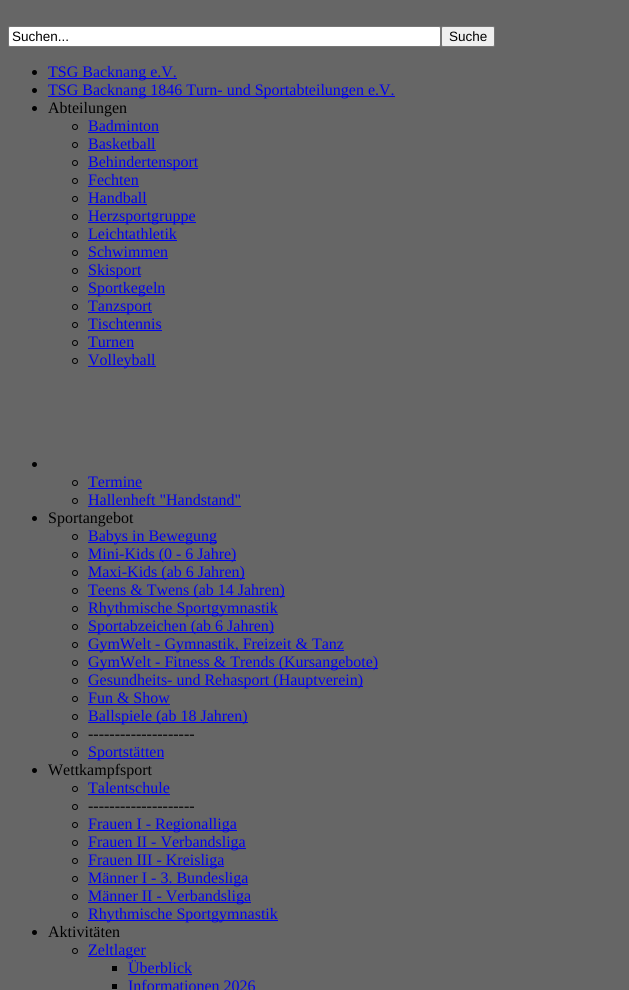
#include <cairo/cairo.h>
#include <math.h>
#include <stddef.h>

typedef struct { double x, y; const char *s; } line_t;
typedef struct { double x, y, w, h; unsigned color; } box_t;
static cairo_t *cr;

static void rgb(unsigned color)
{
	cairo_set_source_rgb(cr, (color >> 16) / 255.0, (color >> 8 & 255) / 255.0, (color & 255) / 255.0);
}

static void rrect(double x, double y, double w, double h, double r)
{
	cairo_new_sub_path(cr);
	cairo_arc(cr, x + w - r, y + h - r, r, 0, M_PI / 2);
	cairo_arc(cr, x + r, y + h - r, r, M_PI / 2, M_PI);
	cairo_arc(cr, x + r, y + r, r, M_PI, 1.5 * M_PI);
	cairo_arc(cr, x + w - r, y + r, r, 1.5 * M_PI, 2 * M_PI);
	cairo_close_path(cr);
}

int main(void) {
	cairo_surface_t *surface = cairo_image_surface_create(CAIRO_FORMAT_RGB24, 629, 990);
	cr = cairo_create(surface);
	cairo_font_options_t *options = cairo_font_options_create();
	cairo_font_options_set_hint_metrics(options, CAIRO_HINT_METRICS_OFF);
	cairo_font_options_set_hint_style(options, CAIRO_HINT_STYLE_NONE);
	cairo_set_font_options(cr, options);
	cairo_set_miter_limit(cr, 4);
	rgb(0x666666);
	cairo_paint(cr);
	rgb(0xffffff);
	rrect(8.5, 26.5, 432, 20, 1.5);
	cairo_fill_preserve(cr);
	rgb(0x767676);
	cairo_set_line_width(cr, 1);
	cairo_stroke(cr);
	rgb(0xefefef);
	rrect(441.5, 26.5, 53, 20, 1.5);
	cairo_fill_preserve(cr);
	rgb(0x767676);
	cairo_stroke(cr);
	rgb(0x000000);
	cairo_arc(cr, 34.5, 72.5, 2.5, 0, 2 * M_PI);
	cairo_fill(cr);
	rgb(0x0000ee);
	cairo_rectangle(cr, 48, 78, 129, 1);
	cairo_fill(cr);
	rgb(0x000000);
	cairo_arc(cr, 34.5, 90.5, 2.5, 0, 2 * M_PI);
	cairo_fill(cr);
	rgb(0x0000ee);
	cairo_rectangle(cr, 48, 96, 347, 1);
	cairo_fill(cr);
	rgb(0x000000);
	cairo_arc(cr, 34.5, 108.5, 2.5, 0, 2 * M_PI);
	cairo_fill(cr);
	cairo_arc(cr, 75, 127, 2.5, 0, 2 * M_PI);
	cairo_stroke(cr);
	rgb(0x0000ee);
	cairo_rectangle(cr, 88, 132, 71, 1);
	cairo_fill(cr);
	cairo_arc(cr, 75, 145, 2.5, 0, 2 * M_PI);
	rgb(0x000000);
	cairo_stroke(cr);
	rgb(0x0000ee);
	cairo_rectangle(cr, 88, 150, 68, 1);
	cairo_fill(cr);
	cairo_arc(cr, 75, 163, 2.5, 0, 2 * M_PI);
	rgb(0x000000);
	cairo_stroke(cr);
	rgb(0x0000ee);
	cairo_rectangle(cr, 88, 168, 110, 1);
	cairo_fill(cr);
	cairo_arc(cr, 75, 181, 2.5, 0, 2 * M_PI);
	rgb(0x000000);
	cairo_stroke(cr);
	rgb(0x0000ee);
	cairo_rectangle(cr, 88, 186, 51, 1);
	cairo_fill(cr);
	cairo_arc(cr, 75, 199, 2.5, 0, 2 * M_PI);
	rgb(0x000000);
	cairo_stroke(cr);
	rgb(0x0000ee);
	cairo_rectangle(cr, 88, 204, 59, 1);
	cairo_fill(cr);
	cairo_arc(cr, 75, 217, 2.5, 0, 2 * M_PI);
	rgb(0x000000);
	cairo_stroke(cr);
	rgb(0x0000ee);
	cairo_rectangle(cr, 88, 222, 108, 1);
	cairo_fill(cr);
	cairo_arc(cr, 75, 235, 2.5, 0, 2 * M_PI);
	rgb(0x000000);
	cairo_stroke(cr);
	rgb(0x0000ee);
	cairo_rectangle(cr, 88, 240, 89, 1);
	cairo_fill(cr);
	cairo_arc(cr, 75, 253, 2.5, 0, 2 * M_PI);
	rgb(0x000000);
	cairo_stroke(cr);
	rgb(0x0000ee);
	cairo_rectangle(cr, 88, 258, 80, 1);
	cairo_fill(cr);
	cairo_arc(cr, 75, 271, 2.5, 0, 2 * M_PI);
	rgb(0x000000);
	cairo_stroke(cr);
	rgb(0x0000ee);
	cairo_rectangle(cr, 88, 276, 53, 1);
	cairo_fill(cr);
	cairo_arc(cr, 75, 289, 2.5, 0, 2 * M_PI);
	rgb(0x000000);
	cairo_stroke(cr);
	rgb(0x0000ee);
	cairo_rectangle(cr, 88, 294, 77, 1);
	cairo_fill(cr);
	cairo_arc(cr, 75, 307, 2.5, 0, 2 * M_PI);
	rgb(0x000000);
	cairo_stroke(cr);
	rgb(0x0000ee);
	cairo_rectangle(cr, 88, 312, 64, 1);
	cairo_fill(cr);
	cairo_arc(cr, 75, 325, 2.5, 0, 2 * M_PI);
	rgb(0x000000);
	cairo_stroke(cr);
	rgb(0x0000ee);
	cairo_rectangle(cr, 88, 330, 74, 1);
	cairo_fill(cr);
	cairo_arc(cr, 75, 343, 2.5, 0, 2 * M_PI);
	rgb(0x000000);
	cairo_stroke(cr);
	rgb(0x0000ee);
	cairo_rectangle(cr, 88, 348, 46, 1);
	cairo_fill(cr);
	cairo_arc(cr, 75, 361, 2.5, 0, 2 * M_PI);
	rgb(0x000000);
	cairo_stroke(cr);
	rgb(0x0000ee);
	cairo_rectangle(cr, 88, 366, 68, 1);
	cairo_fill(cr);
	rgb(0x000000);
	cairo_arc(cr, 34.5, 464.5, 2.5, 0, 2 * M_PI);
	cairo_fill(cr);
	cairo_arc(cr, 75, 483, 2.5, 0, 2 * M_PI);
	cairo_stroke(cr);
	rgb(0x0000ee);
	cairo_rectangle(cr, 88, 488, 54, 1);
	cairo_fill(cr);
	cairo_arc(cr, 75, 501, 2.5, 0, 2 * M_PI);
	rgb(0x000000);
	cairo_stroke(cr);
	rgb(0x0000ee);
	cairo_rectangle(cr, 88, 506, 153, 1);
	cairo_fill(cr);
	rgb(0x000000);
	cairo_arc(cr, 34.5, 518.5, 2.5, 0, 2 * M_PI);
	cairo_fill(cr);
	cairo_arc(cr, 75, 537, 2.5, 0, 2 * M_PI);
	cairo_stroke(cr);
	rgb(0x0000ee);
	cairo_rectangle(cr, 88, 542, 129, 1);
	cairo_fill(cr);
	cairo_arc(cr, 75, 555, 2.5, 0, 2 * M_PI);
	rgb(0x000000);
	cairo_stroke(cr);
	rgb(0x0000ee);
	cairo_rectangle(cr, 88, 560, 148, 1);
	cairo_fill(cr);
	cairo_arc(cr, 75, 573, 2.5, 0, 2 * M_PI);
	rgb(0x000000);
	cairo_stroke(cr);
	rgb(0x0000ee);
	cairo_rectangle(cr, 88, 578, 157, 1);
	cairo_fill(cr);
	cairo_arc(cr, 75, 591, 2.5, 0, 2 * M_PI);
	rgb(0x000000);
	cairo_stroke(cr);
	rgb(0x0000ee);
	cairo_rectangle(cr, 88, 596, 197, 1);
	cairo_fill(cr);
	cairo_arc(cr, 75, 609, 2.5, 0, 2 * M_PI);
	rgb(0x000000);
	cairo_stroke(cr);
	rgb(0x0000ee);
	cairo_rectangle(cr, 88, 614, 190, 1);
	cairo_fill(cr);
	cairo_arc(cr, 75, 627, 2.5, 0, 2 * M_PI);
	rgb(0x000000);
	cairo_stroke(cr);
	rgb(0x0000ee);
	cairo_rectangle(cr, 88, 632, 186, 1);
	cairo_fill(cr);
	cairo_arc(cr, 75, 645, 2.5, 0, 2 * M_PI);
	rgb(0x000000);
	cairo_stroke(cr);
	rgb(0x0000ee);
	cairo_rectangle(cr, 88, 650, 256, 1);
	cairo_fill(cr);
	cairo_arc(cr, 75, 663, 2.5, 0, 2 * M_PI);
	rgb(0x000000);
	cairo_stroke(cr);
	rgb(0x0000ee);
	cairo_rectangle(cr, 88, 668, 290, 1);
	cairo_fill(cr);
	cairo_arc(cr, 75, 681, 2.5, 0, 2 * M_PI);
	rgb(0x000000);
	cairo_stroke(cr);
	rgb(0x0000ee);
	cairo_rectangle(cr, 88, 686, 275, 1);
	cairo_fill(cr);
	cairo_arc(cr, 75, 699, 2.5, 0, 2 * M_PI);
	rgb(0x000000);
	cairo_stroke(cr);
	rgb(0x0000ee);
	cairo_rectangle(cr, 88, 704, 82, 1);
	cairo_fill(cr);
	cairo_arc(cr, 75, 717, 2.5, 0, 2 * M_PI);
	rgb(0x000000);
	cairo_stroke(cr);
	rgb(0x0000ee);
	cairo_rectangle(cr, 88, 722, 160, 1);
	cairo_fill(cr);
	cairo_arc(cr, 75, 735, 2.5, 0, 2 * M_PI);
	rgb(0x000000);
	cairo_stroke(cr);
	cairo_arc(cr, 75, 753, 2.5, 0, 2 * M_PI);
	cairo_stroke(cr);
	rgb(0x0000ee);
	cairo_rectangle(cr, 88, 758, 76, 1);
	cairo_fill(cr);
	rgb(0x000000);
	cairo_arc(cr, 34.5, 770.5, 2.5, 0, 2 * M_PI);
	cairo_fill(cr);
	cairo_arc(cr, 75, 789, 2.5, 0, 2 * M_PI);
	cairo_stroke(cr);
	rgb(0x0000ee);
	cairo_rectangle(cr, 88, 794, 82, 1);
	cairo_fill(cr);
	cairo_arc(cr, 75, 807, 2.5, 0, 2 * M_PI);
	rgb(0x000000);
	cairo_stroke(cr);
	cairo_arc(cr, 75, 825, 2.5, 0, 2 * M_PI);
	cairo_stroke(cr);
	rgb(0x0000ee);
	cairo_rectangle(cr, 88, 830, 149, 1);
	cairo_fill(cr);
	cairo_arc(cr, 75, 843, 2.5, 0, 2 * M_PI);
	rgb(0x000000);
	cairo_stroke(cr);
	rgb(0x0000ee);
	cairo_rectangle(cr, 88, 848, 158, 1);
	cairo_fill(cr);
	cairo_arc(cr, 75, 861, 2.5, 0, 2 * M_PI);
	rgb(0x000000);
	cairo_stroke(cr);
	rgb(0x0000ee);
	cairo_rectangle(cr, 88, 866, 136, 1);
	cairo_fill(cr);
	cairo_arc(cr, 75, 879, 2.5, 0, 2 * M_PI);
	rgb(0x000000);
	cairo_stroke(cr);
	rgb(0x0000ee);
	cairo_rectangle(cr, 88, 884, 160, 1);
	cairo_fill(cr);
	cairo_arc(cr, 75, 897, 2.5, 0, 2 * M_PI);
	rgb(0x000000);
	cairo_stroke(cr);
	rgb(0x0000ee);
	cairo_rectangle(cr, 88, 902, 163, 1);
	cairo_fill(cr);
	cairo_arc(cr, 75, 915, 2.5, 0, 2 * M_PI);
	rgb(0x000000);
	cairo_stroke(cr);
	rgb(0x0000ee);
	cairo_rectangle(cr, 88, 920, 190, 1);
	cairo_fill(cr);
	rgb(0x000000);
	cairo_arc(cr, 34.5, 932.5, 2.5, 0, 2 * M_PI);
	cairo_fill(cr);
	cairo_arc(cr, 75, 951, 2.5, 0, 2 * M_PI);
	cairo_stroke(cr);
	{
		static const box_t items[] = {
			{88, 956, 58, 1, 0x0000ee},
			{112, 966, 5, 5, 0x000000},
			{128, 974, 64, 1, 0x0000ee},
			{112, 984, 5, 5, 0x000000},
		};
		for (size_t i = 0; i < sizeof items / sizeof *items; i++) {
			rgb(items[i].color);
			cairo_rectangle(cr, items[i].x, items[i].y, items[i].w, items[i].h);
			cairo_fill(cr);
		}
	}
	cairo_select_font_face(cr, "Liberation Sans", CAIRO_FONT_SLANT_NORMAL, CAIRO_FONT_WEIGHT_NORMAL);
	cairo_set_font_size(cr, 13.5);
	cairo_move_to(cr, 12, 41);
	cairo_show_text(cr, "Suchen...");
	cairo_move_to(cr, 449, 41);
	cairo_show_text(cr, "Suche");
	cairo_select_font_face(cr, "Liberation Serif", CAIRO_FONT_SLANT_NORMAL, CAIRO_FONT_WEIGHT_NORMAL);
	cairo_set_font_size(cr, 16);
	rgb(0x0000ee);
	cairo_move_to(cr, 48, 77);
	cairo_show_text(cr, "TSG Backnang e.V.");
	cairo_move_to(cr, 48, 95);
	cairo_show_text(cr, "TSG Backnang 1846 Turn- und Sportabteilungen e.V.");
	rgb(0x000000);
	cairo_move_to(cr, 48, 113);
	cairo_show_text(cr, "Abteilungen");
	rgb(0x0000ee);
	{
		static const line_t items[] = {
			{88, 131, "Badminton"},
			{88, 149, "Basketball"},
			{88, 167, "Behindertensport"},
			{88, 185, "Fechten"},
			{88, 203, "Handball"},
			{88, 221, "Herzsportgruppe"},
			{88, 239, "Leichtathletik"},
			{88, 257, "Schwimmen"},
			{88, 275, "Skisport"},
			{88, 293, "Sportkegeln"},
			{88, 311, "Tanzsport"},
			{88, 329, "Tischtennis"},
			{88, 347, "Turnen"},
			{88, 365, "Volleyball"},
			{88, 487, "Termine"},
			{88, 505, "Hallenheft \"Handstand\""},
		};
		for (size_t i = 0; i < sizeof items / sizeof *items; i++) {
			cairo_move_to(cr, items[i].x, items[i].y);
			cairo_show_text(cr, items[i].s);
		}
	}
	rgb(0x000000);
	cairo_move_to(cr, 48, 523);
	cairo_show_text(cr, "Sportangebot");
	rgb(0x0000ee);
	{
		static const line_t items[] = {
			{88, 541, "Babys in Bewegung"},
			{88, 559, "Mini-Kids (0 - 6 Jahre)"},
			{88, 577, "Maxi-Kids (ab 6 Jahren)"},
			{88, 595, "Teens & Twens (ab 14 Jahren)"},
			{88, 613, "Rhythmische Sportgymnastik"},
			{88, 631, "Sportabzeichen (ab 6 Jahren)"},
			{88, 649, "GymWelt - Gymnastik, Freizeit & Tanz"},
			{88, 667, "GymWelt - Fitness & Trends (Kursangebote)"},
			{88, 685, "Gesundheits- und Rehasport (Hauptverein)"},
			{88, 703, "Fun & Show"},
			{88, 721, "Ballspiele (ab 18 Jahren)"},
		};
		for (size_t i = 0; i < sizeof items / sizeof *items; i++) {
			cairo_move_to(cr, items[i].x, items[i].y);
			cairo_show_text(cr, items[i].s);
		}
	}
	rgb(0x000000);
	cairo_move_to(cr, 88, 739);
	cairo_show_text(cr, "--------------------");
	rgb(0x0000ee);
	cairo_move_to(cr, 88, 757);
	cairo_show_text(cr, "Sportstätten");
	rgb(0x000000);
	cairo_move_to(cr, 48, 775);
	cairo_show_text(cr, "Wettkampfsport");
	rgb(0x0000ee);
	cairo_move_to(cr, 88, 793);
	cairo_show_text(cr, "Talentschule");
	rgb(0x000000);
	cairo_move_to(cr, 88, 811);
	cairo_show_text(cr, "--------------------");
	rgb(0x0000ee);
	{
		static const line_t items[] = {
			{88, 829, "Frauen I - Regionalliga"},
			{88, 847, "Frauen II - Verbandsliga"},
			{88, 865, "Frauen III - Kreisliga"},
			{88, 883, "Männer I - 3. Bundesliga"},
			{88, 901, "Männer II - Verbandsliga"},
			{88, 919, "Rhythmische Sportgymnastik"},
		};
		for (size_t i = 0; i < sizeof items / sizeof *items; i++) {
			cairo_move_to(cr, items[i].x, items[i].y);
			cairo_show_text(cr, items[i].s);
		}
	}
	rgb(0x000000);
	cairo_move_to(cr, 48, 937);
	cairo_show_text(cr, "Aktivitäten");
	rgb(0x0000ee);
	{
		static const line_t items[] = {
			{88, 955, "Zeltlager"},
			{128, 973, "Überblick"},
			{128, 991, "Informationen 2026"},
		};
		for (size_t i = 0; i < sizeof items / sizeof *items; i++) {
			cairo_move_to(cr, items[i].x, items[i].y);
			cairo_show_text(cr, items[i].s);
		}
	}
	cairo_surface_write_to_png(surface, "page.png");
	cairo_font_options_destroy(options);
	cairo_destroy(cr);
	cairo_surface_destroy(surface);
	return 0;
}
